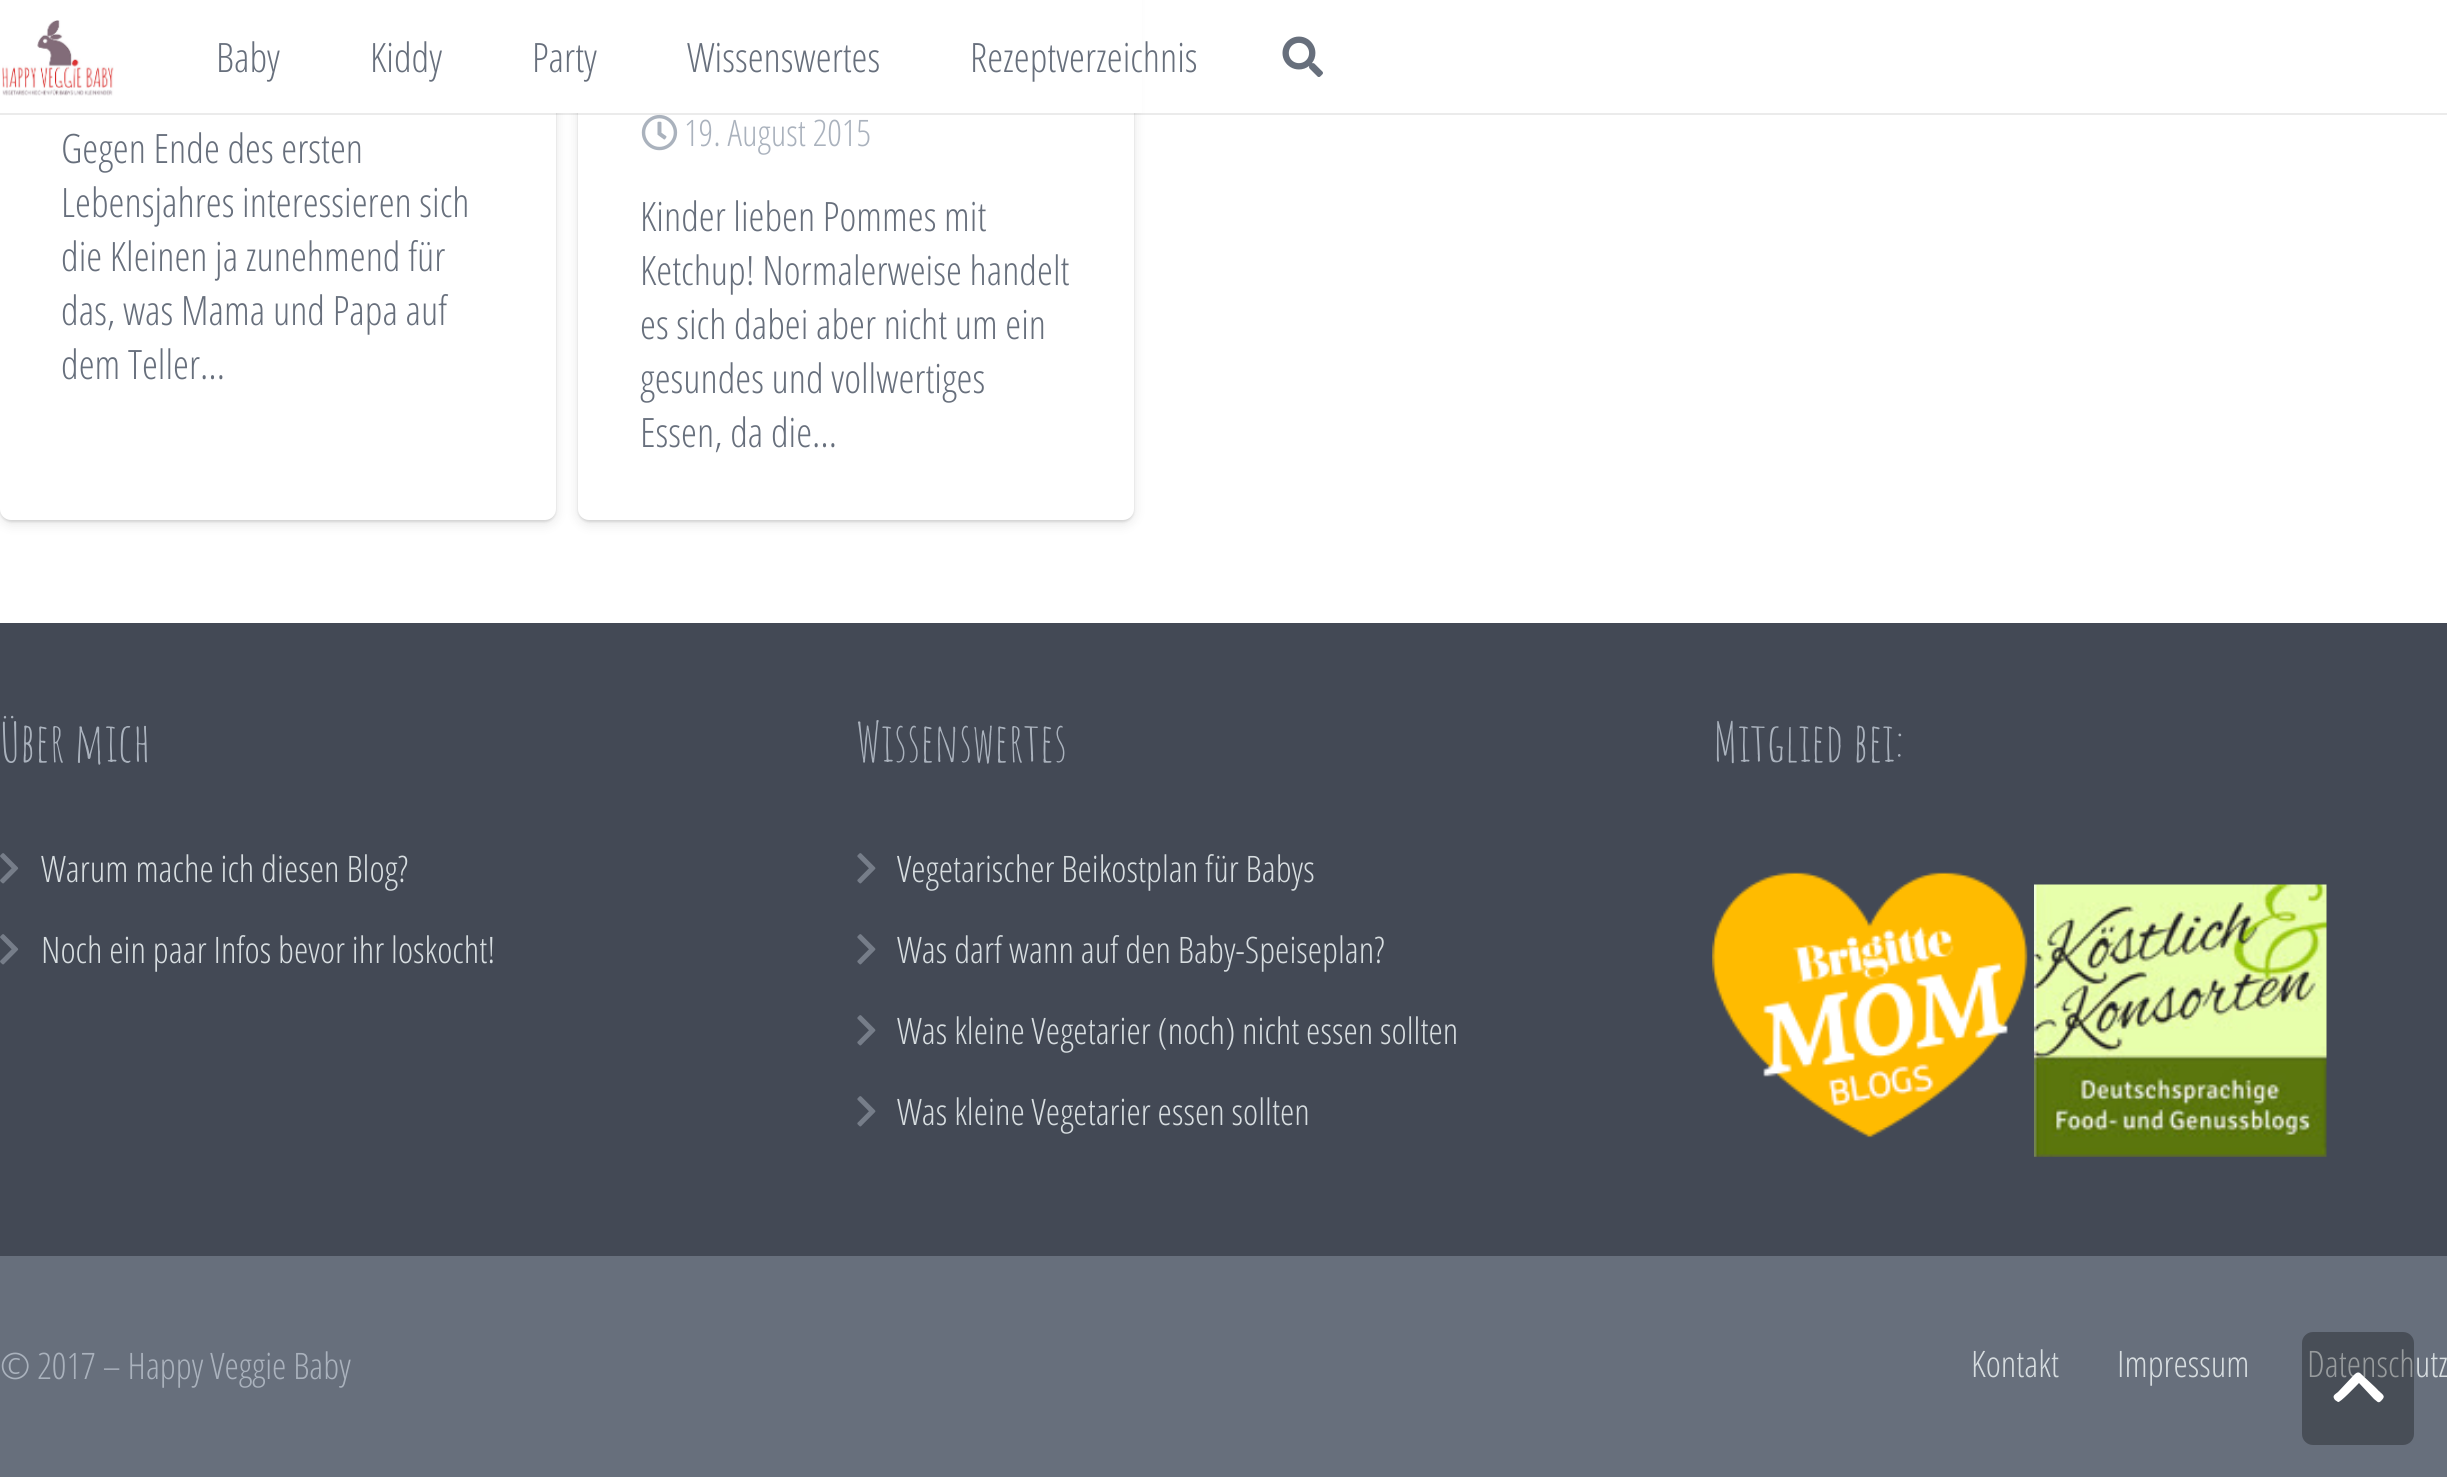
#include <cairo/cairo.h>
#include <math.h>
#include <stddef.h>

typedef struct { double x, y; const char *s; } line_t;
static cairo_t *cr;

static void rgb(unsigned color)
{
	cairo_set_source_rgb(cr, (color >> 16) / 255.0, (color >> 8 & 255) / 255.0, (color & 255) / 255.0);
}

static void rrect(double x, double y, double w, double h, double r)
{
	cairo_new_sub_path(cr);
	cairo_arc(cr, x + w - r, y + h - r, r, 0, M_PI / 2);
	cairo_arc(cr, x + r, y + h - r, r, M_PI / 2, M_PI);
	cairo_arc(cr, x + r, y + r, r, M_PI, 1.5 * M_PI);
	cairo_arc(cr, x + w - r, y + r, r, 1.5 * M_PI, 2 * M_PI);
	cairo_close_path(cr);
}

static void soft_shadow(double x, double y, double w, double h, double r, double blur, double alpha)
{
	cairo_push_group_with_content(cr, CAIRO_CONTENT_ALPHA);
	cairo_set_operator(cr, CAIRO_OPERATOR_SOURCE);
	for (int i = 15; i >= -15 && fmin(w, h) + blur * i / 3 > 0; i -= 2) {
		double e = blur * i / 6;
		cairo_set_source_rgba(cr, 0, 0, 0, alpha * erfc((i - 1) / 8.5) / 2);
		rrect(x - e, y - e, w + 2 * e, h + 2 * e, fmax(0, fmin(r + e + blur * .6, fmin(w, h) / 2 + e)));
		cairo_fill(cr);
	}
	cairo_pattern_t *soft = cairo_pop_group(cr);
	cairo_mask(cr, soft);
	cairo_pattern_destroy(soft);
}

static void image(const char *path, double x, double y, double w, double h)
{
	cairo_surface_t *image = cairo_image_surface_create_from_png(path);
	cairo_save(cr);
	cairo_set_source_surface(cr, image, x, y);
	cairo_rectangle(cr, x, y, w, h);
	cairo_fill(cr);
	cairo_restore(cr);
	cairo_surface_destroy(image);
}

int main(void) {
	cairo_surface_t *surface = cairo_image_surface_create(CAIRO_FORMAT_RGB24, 2447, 1477);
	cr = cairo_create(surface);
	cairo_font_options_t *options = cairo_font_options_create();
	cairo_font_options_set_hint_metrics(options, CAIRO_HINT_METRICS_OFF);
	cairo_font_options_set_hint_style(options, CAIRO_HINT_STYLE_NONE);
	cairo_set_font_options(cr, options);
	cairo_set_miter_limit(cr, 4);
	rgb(0xffffff);
	cairo_paint(cr);
	rgb(0x000000);
	soft_shadow(0, -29, 556, 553, 11, 6, 0.1);
	soft_shadow(0, -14, 556, 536, 11, 1, 0.1);
	rgb(0xffffff);
	rrect(0, -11, 556, 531, 11);
	cairo_fill(cr);
	rgb(0x000000);
	soft_shadow(578, -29, 556, 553, 11, 6, 0.1);
	soft_shadow(578, -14, 556, 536, 11, 1, 0.1);
	rgb(0xffffff);
	rrect(578, -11, 556, 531, 11);
	cairo_fill(cr);
	image("img/3.png", 641, 114, 37, 37);
	cairo_set_source_rgba(cr, 0, 0, 0, 0.08);
	cairo_rectangle(cr, 0, 113, 2447, 2);
	cairo_fill(cr);
	rgb(0xffffff);
	cairo_rectangle(cr, 556, 0, 586, 113);
	cairo_fill(cr);
	image("img/1.png", 2, 20, 112, 76);
	image("img/2.png", 1282, 36, 41, 41);
	rgb(0x434955);
	cairo_rectangle(cr, 0, 623, 2447, 633);
	cairo_fill(cr);
	image("img/4.png", 0, 853, 19, 31);
	image("img/4.png", 0, 934, 19, 31);
	image("img/5.png", 857, 853, 19, 31);
	image("img/5.png", 857, 934, 19, 31);
	image("img/5.png", 857, 1015, 19, 31);
	image("img/5.png", 857, 1096, 19, 31);
	image("img/6.png", 1712, 872, 316, 266);
	image("img/7.png", 2034, 884, 293, 273);
	rgb(0x676f7c);
	cairo_rectangle(cr, 0, 1256, 2447, 221);
	cairo_fill(cr);
	cairo_select_font_face(cr, "Open Sans Condensed Light", CAIRO_FONT_SLANT_NORMAL, CAIRO_FONT_WEIGHT_NORMAL);
	cairo_set_font_size(cr, 40.5);
	{
		static const line_t items[] = {
			{216, 72, "Baby"},
			{370, 72, "Kiddy"},
			{532, 72, "Party"},
			{687, 72, "Wissenswertes"},
			{970, 72, "Rezeptverzeichnis"},
			{61, 163, "Gegen Ende des ersten"},
			{61, 217, "Lebensjahres interessieren sich"},
			{61, 271, "die Kleinen ja zunehmend für"},
			{61, 325, "das, was Mama und Papa auf"},
			{61, 379, "dem Teller…"},
		};
		for (size_t i = 0; i < sizeof items / sizeof *items; i++) {
			cairo_move_to(cr, items[i].x, items[i].y);
			cairo_show_text(cr, items[i].s);
		}
	}
	cairo_set_font_size(cr, 36.5);
	rgb(0xaab2bd);
	cairo_move_to(cr, 684, 146);
	cairo_show_text(cr, "19. August 2015");
	cairo_set_font_size(cr, 40.5);
	rgb(0x676f7c);
	{
		static const line_t items[] = {
			{640, 231, "Kinder lieben Pommes mit"},
			{640, 285, "Ketchup! Normalerweise handelt"},
			{640, 339, "es sich dabei aber nicht um ein"},
			{640, 393, "gesundes und vollwertiges"},
			{640, 447, "Essen, da die…"},
		};
		for (size_t i = 0; i < sizeof items / sizeof *items; i++) {
			cairo_move_to(cr, items[i].x, items[i].y);
			cairo_show_text(cr, items[i].s);
		}
	}
	cairo_select_font_face(cr, "Amatic SC", CAIRO_FONT_SLANT_NORMAL, CAIRO_FONT_WEIGHT_NORMAL);
	cairo_set_font_size(cr, 54);
	rgb(0xaab2bd);
	cairo_move_to(cr, 0, 762);
	cairo_show_text(cr, "Über mich");
	cairo_select_font_face(cr, "Open Sans Condensed Light", CAIRO_FONT_SLANT_NORMAL, CAIRO_FONT_WEIGHT_NORMAL);
	cairo_set_font_size(cr, 36.5);
	rgb(0xd7dde0);
	cairo_move_to(cr, 41, 882);
	cairo_show_text(cr, "Warum mache ich diesen Blog?");
	cairo_move_to(cr, 41, 963);
	cairo_show_text(cr, "Noch ein paar Infos bevor ihr loskocht!");
	cairo_select_font_face(cr, "Amatic SC", CAIRO_FONT_SLANT_NORMAL, CAIRO_FONT_WEIGHT_NORMAL);
	cairo_set_font_size(cr, 54);
	rgb(0xaab2bd);
	cairo_move_to(cr, 856, 762);
	cairo_show_text(cr, "Wissenswertes");
	cairo_select_font_face(cr, "Open Sans Condensed Light", CAIRO_FONT_SLANT_NORMAL, CAIRO_FONT_WEIGHT_NORMAL);
	cairo_set_font_size(cr, 36.5);
	rgb(0xd7dde0);
	{
		static const line_t items[] = {
			{897, 882, "Vegetarischer Beikostplan für Babys"},
			{897, 963, "Was darf wann auf den Baby-Speiseplan?"},
			{897, 1044, "Was kleine Vegetarier (noch) nicht essen sollten"},
			{897, 1125, "Was kleine Vegetarier essen sollten"},
		};
		for (size_t i = 0; i < sizeof items / sizeof *items; i++) {
			cairo_move_to(cr, items[i].x, items[i].y);
			cairo_show_text(cr, items[i].s);
		}
	}
	cairo_select_font_face(cr, "Amatic SC", CAIRO_FONT_SLANT_NORMAL, CAIRO_FONT_WEIGHT_NORMAL);
	cairo_set_font_size(cr, 54);
	rgb(0xaab2bd);
	cairo_move_to(cr, 1713, 762);
	cairo_show_text(cr, "Mitglied bei:");
	cairo_select_font_face(cr, "Open Sans Condensed Light", CAIRO_FONT_SLANT_NORMAL, CAIRO_FONT_WEIGHT_NORMAL);
	cairo_set_font_size(cr, 36.5);
	cairo_move_to(cr, 0, 1379);
	cairo_show_text(cr, "© 2017 – Happy Veggie Baby");
	rgb(0xd7dde0);
	{
		static const line_t items[] = {
			{1971, 1377, "Kontakt"},
			{2117, 1377, "Impressum"},
			{2307, 1377, "Datenschutz"},
		};
		for (size_t i = 0; i < sizeof items / sizeof *items; i++) {
			cairo_move_to(cr, items[i].x, items[i].y);
			cairo_show_text(cr, items[i].s);
		}
	}
	cairo_set_source_rgba(cr, 0, 0, 0, 0.3);
	rrect(2302, 1332, 112, 113, 11);
	cairo_fill(cr);
	rgb(0xffffff);
	cairo_new_path(cr);
	cairo_move_to(cr, 2360, 1373);
	cairo_line_to(cr, 2376, 1388);
	cairo_curve_to(cr, 2382, 1395, 2387, 1395, 2381, 1401);
	cairo_curve_to(cr, 2378, 1404, 2377, 1401, 2374, 1399);
	cairo_line_to(cr, 2359, 1383);
	cairo_curve_to(cr, 2356, 1386, 2340, 1403, 2338, 1402);
	cairo_line_to(cr, 2335, 1400);
	cairo_curve_to(cr, 2332, 1396, 2334, 1395, 2338, 1392);
	cairo_line_to(cr, 2353, 1376);
	cairo_curve_to(cr, 2354, 1375, 2357, 1371, 2360, 1373);
	cairo_close_path(cr);
	cairo_fill(cr);
	cairo_surface_write_to_png(surface, "page.png");
	cairo_font_options_destroy(options);
	cairo_destroy(cr);
	cairo_surface_destroy(surface);
	return 0;
}
